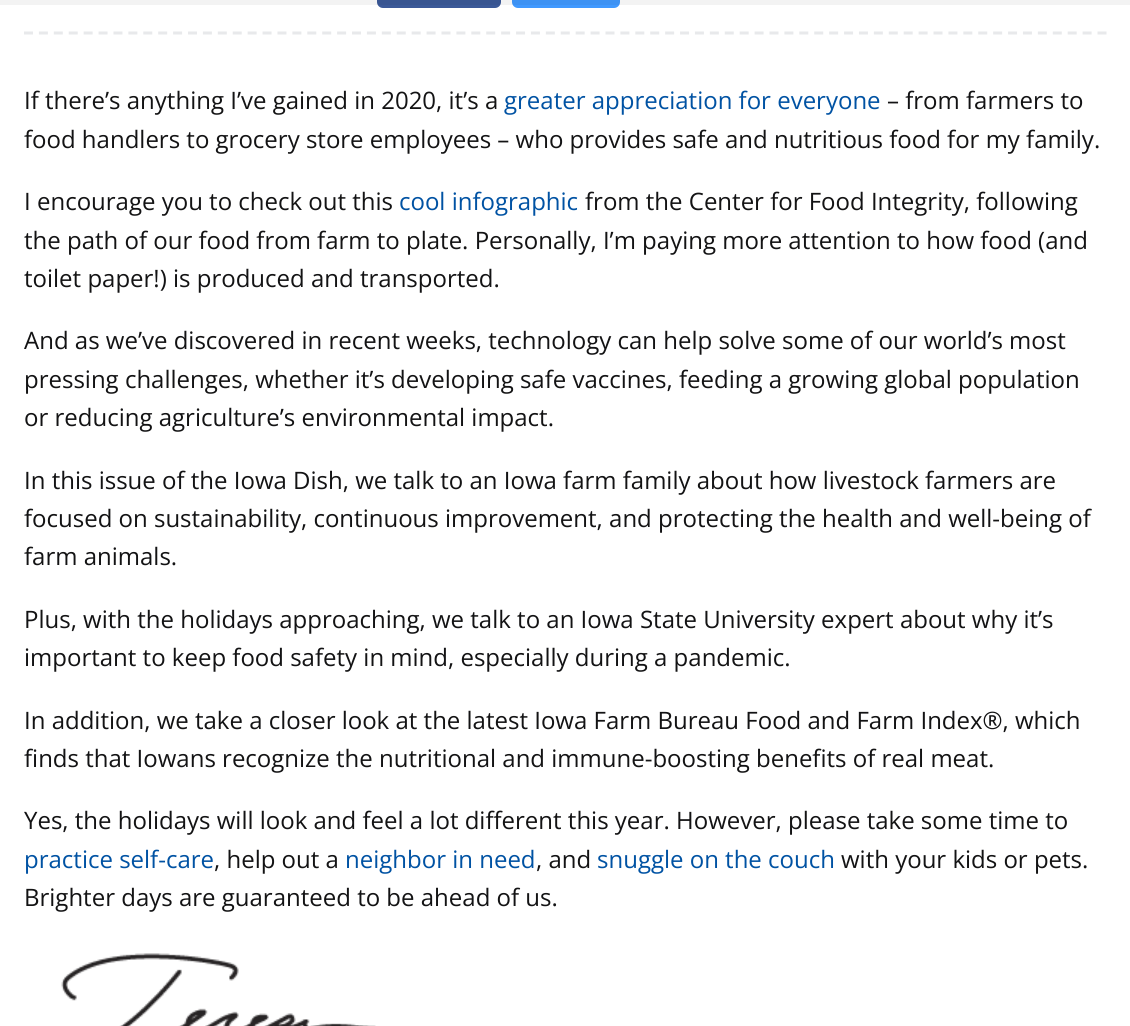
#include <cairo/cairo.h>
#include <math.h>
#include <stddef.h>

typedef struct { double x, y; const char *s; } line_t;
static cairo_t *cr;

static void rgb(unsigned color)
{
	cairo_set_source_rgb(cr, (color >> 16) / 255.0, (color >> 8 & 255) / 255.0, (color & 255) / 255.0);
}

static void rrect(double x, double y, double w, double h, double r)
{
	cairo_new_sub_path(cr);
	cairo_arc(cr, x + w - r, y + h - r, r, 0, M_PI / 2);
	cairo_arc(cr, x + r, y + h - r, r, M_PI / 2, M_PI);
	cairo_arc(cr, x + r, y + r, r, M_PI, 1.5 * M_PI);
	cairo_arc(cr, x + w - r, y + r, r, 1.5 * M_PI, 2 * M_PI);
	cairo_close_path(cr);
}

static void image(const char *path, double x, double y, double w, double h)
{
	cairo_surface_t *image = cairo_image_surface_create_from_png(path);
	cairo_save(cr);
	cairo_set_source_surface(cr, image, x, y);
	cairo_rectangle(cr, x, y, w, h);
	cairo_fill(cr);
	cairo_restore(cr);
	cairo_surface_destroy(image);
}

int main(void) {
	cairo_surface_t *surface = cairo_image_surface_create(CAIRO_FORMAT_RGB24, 1130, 1026);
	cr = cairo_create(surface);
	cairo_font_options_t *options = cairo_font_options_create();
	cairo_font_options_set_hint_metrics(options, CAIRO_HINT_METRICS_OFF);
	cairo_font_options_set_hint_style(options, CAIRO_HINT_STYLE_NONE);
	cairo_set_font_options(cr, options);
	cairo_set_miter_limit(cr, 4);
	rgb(0xffffff);
	cairo_paint(cr);
	rgb(0x3b5998);
	rrect(377, -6, 124, 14, 6);
	cairo_fill(cr);
	rgb(0x4099ff);
	rrect(512, -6, 108, 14, 6);
	cairo_fill(cr);
	cairo_set_source_rgba(cr, 0, 0, 0, 0.05);
	cairo_rectangle(cr, 0, 0, 1130, 5);
	cairo_fill(cr);
	cairo_new_path(cr);
	cairo_move_to(cr, 24, 33);
	cairo_line_to(cr, 1107, 33);
	rgb(0xe8e9eb);
	cairo_set_line_width(cr, 3);
	cairo_set_dash(cr, (double[]){9, 5.91}, 2, 0);
	cairo_stroke(cr);
	image("img/1.png", 61, 953, 315, 73);
	cairo_select_font_face(cr, "Open Sans", CAIRO_FONT_SLANT_NORMAL, CAIRO_FONT_WEIGHT_NORMAL);
	cairo_set_font_size(cr, 24);
	rgb(0x131314);
	cairo_move_to(cr, 24, 109);
	cairo_show_text(cr, "If there’s anything I’ve gained in 2020, it’s a");
	rgb(0x0052a3);
	cairo_move_to(cr, 504, 109);
	cairo_show_text(cr, "greater appreciation for everyone");
	rgb(0x131314);
	{
		static const line_t items[] = {
			{887, 109, "– from farmers to"},
			{24, 148, "food handlers to grocery store employees – who provides safe and nutritious food for my family."},
			{24, 210, "I encourage you to check out this"},
		};
		for (size_t i = 0; i < sizeof items / sizeof *items; i++) {
			cairo_move_to(cr, items[i].x, items[i].y);
			cairo_show_text(cr, items[i].s);
		}
	}
	rgb(0x0052a3);
	cairo_move_to(cr, 399, 210);
	cairo_show_text(cr, "cool infographic");
	rgb(0x131314);
	{
		static const line_t items[] = {
			{585, 210, "from the Center for Food Integrity, following"},
			{24, 249, "the path of our food from farm to plate. Personally, I’m paying more attention to how food (and"},
			{24, 287, "toilet paper!) is produced and transported."},
			{24, 349, "And as we’ve discovered in recent weeks, technology can help solve some of our world’s most"},
			{24, 388, "pressing challenges, whether it’s developing safe vaccines, feeding a growing global population"},
			{24, 426, "or reducing agriculture’s environmental impact."},
			{24, 489, "In this issue of the Iowa Dish, we talk to an Iowa farm family about how livestock farmers are"},
			{24, 527, "focused on sustainability, continuous improvement, and protecting the health and well-being of"},
			{24, 565, "farm animals."},
			{24, 628, "Plus, with the holidays approaching, we talk to an Iowa State University expert about why it’s"},
			{24, 666, "important to keep food safety in mind, especially during a pandemic."},
			{24, 729, "In addition, we take a closer look at the latest Iowa Farm Bureau Food and Farm Index®, which"},
			{24, 767, "finds that Iowans recognize the nutritional and immune-boosting benefits of real meat."},
			{24, 829, "Yes, the holidays will look and feel a lot different this year. However, please take some time to"},
		};
		for (size_t i = 0; i < sizeof items / sizeof *items; i++) {
			cairo_move_to(cr, items[i].x, items[i].y);
			cairo_show_text(cr, items[i].s);
		}
	}
	rgb(0x0052a3);
	cairo_move_to(cr, 24, 868);
	cairo_show_text(cr, "practice self-care");
	rgb(0x131314);
	cairo_move_to(cr, 214, 868);
	cairo_show_text(cr, ", help out a");
	rgb(0x0052a3);
	cairo_move_to(cr, 345, 868);
	cairo_show_text(cr, "neighbor in need");
	rgb(0x131314);
	cairo_move_to(cr, 536, 868);
	cairo_show_text(cr, ", and");
	rgb(0x0052a3);
	cairo_move_to(cr, 597, 868);
	cairo_show_text(cr, "snuggle on the couch");
	rgb(0x131314);
	cairo_move_to(cr, 841, 868);
	cairo_show_text(cr, "with your kids or pets.");
	cairo_move_to(cr, 24, 906);
	cairo_show_text(cr, "Brighter days are guaranteed to be ahead of us.");
	cairo_surface_write_to_png(surface, "page.png");
	cairo_font_options_destroy(options);
	cairo_destroy(cr);
	cairo_surface_destroy(surface);
	return 0;
}
